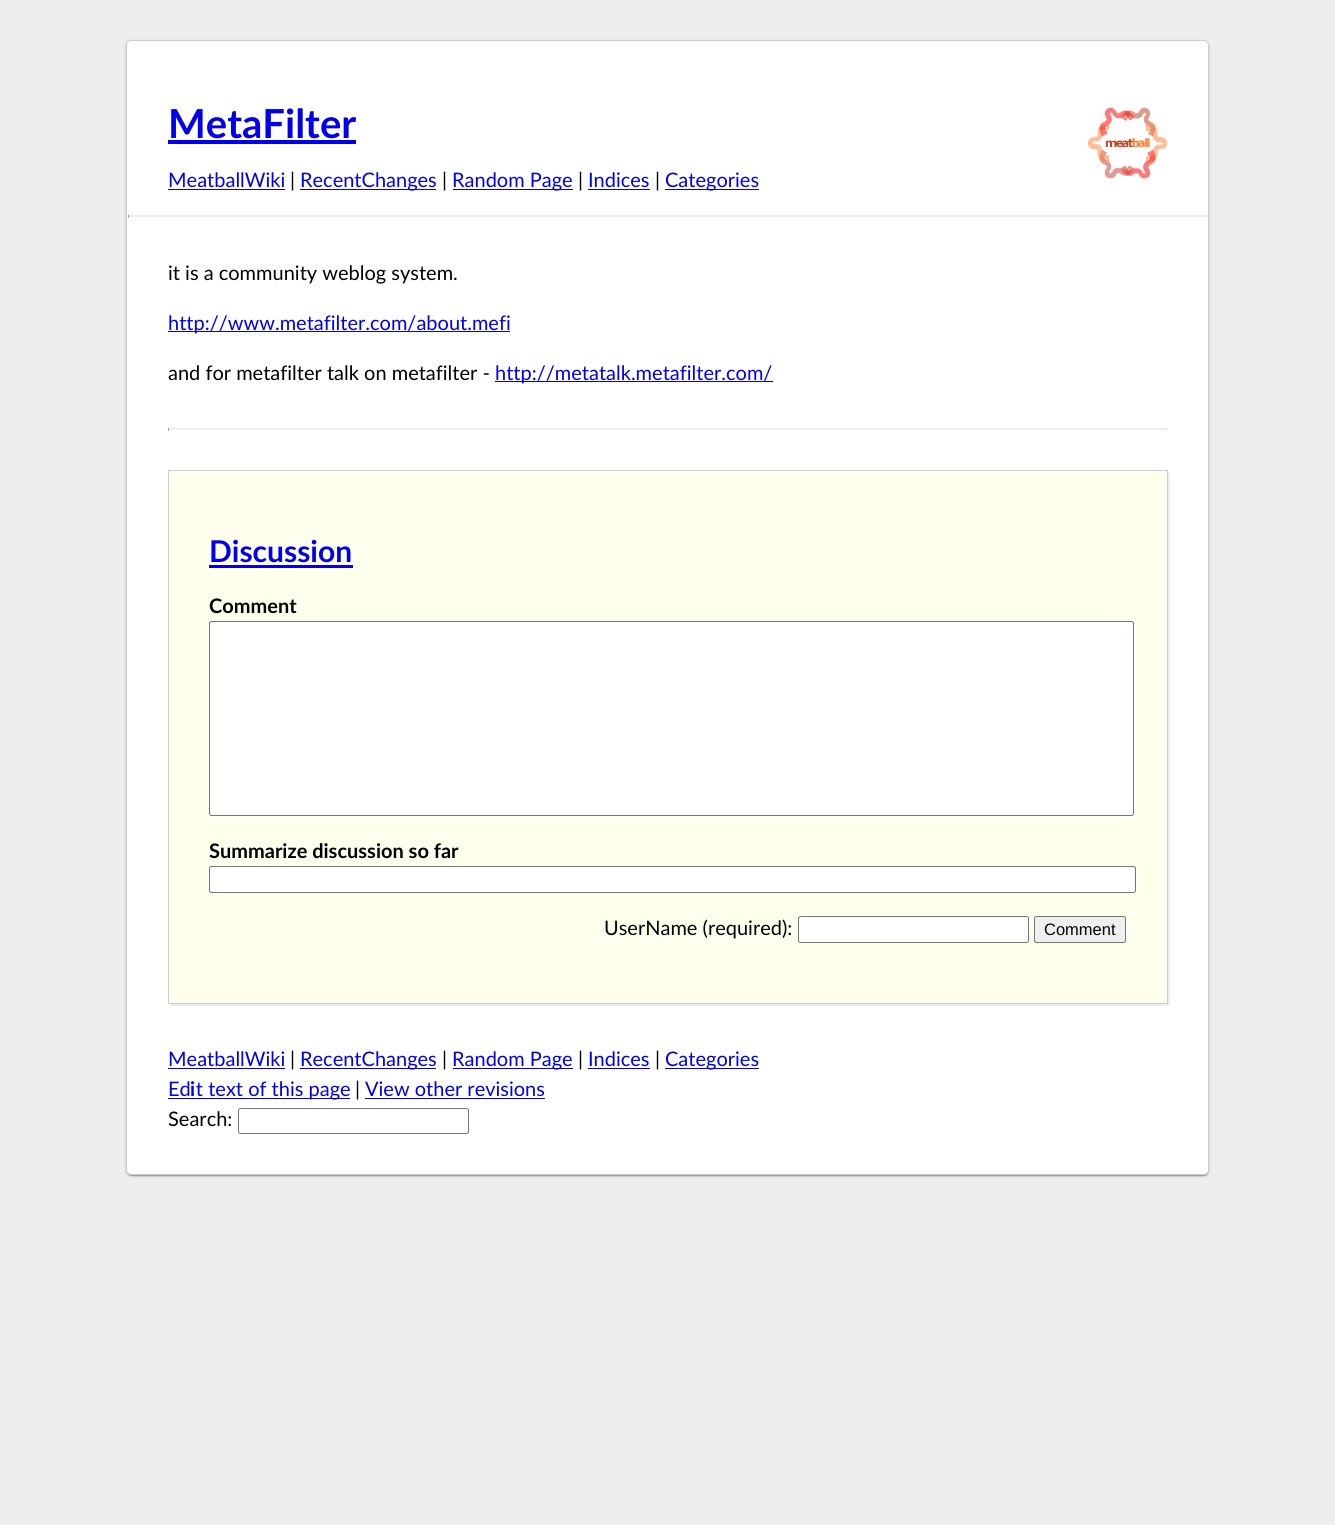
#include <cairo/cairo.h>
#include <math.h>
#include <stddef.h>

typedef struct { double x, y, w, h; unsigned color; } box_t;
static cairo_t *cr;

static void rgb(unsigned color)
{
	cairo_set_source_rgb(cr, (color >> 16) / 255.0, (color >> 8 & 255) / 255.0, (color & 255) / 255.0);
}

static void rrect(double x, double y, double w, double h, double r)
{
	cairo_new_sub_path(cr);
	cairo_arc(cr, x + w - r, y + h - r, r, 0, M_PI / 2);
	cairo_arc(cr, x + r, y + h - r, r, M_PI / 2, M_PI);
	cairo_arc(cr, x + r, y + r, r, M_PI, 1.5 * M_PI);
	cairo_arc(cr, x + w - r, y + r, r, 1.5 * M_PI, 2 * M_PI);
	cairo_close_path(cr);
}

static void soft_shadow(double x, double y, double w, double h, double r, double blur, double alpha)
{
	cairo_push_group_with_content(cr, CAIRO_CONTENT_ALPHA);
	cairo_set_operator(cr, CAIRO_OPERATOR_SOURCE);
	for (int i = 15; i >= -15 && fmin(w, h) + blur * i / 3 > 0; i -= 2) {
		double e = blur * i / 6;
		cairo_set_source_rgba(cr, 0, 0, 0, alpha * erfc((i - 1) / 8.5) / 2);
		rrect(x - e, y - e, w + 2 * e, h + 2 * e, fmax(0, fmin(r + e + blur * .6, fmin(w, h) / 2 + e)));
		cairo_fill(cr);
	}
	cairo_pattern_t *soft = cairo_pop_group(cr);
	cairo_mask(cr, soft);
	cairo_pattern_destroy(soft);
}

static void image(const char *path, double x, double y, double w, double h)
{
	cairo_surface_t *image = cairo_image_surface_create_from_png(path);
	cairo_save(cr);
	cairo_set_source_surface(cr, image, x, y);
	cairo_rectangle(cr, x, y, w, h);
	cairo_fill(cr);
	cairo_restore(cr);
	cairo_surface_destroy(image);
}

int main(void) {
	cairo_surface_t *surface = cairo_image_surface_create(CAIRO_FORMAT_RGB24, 1335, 1525);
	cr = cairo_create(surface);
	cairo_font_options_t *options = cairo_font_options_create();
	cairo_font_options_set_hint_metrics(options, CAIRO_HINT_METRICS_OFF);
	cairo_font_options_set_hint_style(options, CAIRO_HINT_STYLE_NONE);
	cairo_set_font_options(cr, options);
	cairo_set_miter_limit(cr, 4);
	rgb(0xeeeeee);
	cairo_paint(cr);
	rgb(0x000000);
	soft_shadow(126, 41, 1083, 1135, 5, 2, 0.12);
	soft_shadow(126, 41, 1083, 1135, 5, 0.5, 0.14);
	soft_shadow(128, 44, 1080, 1132, 4, 0.5, 0.2);
	rgb(0xffffff);
	rrect(126.5, 40.5, 1082, 1134, 4.5);
	cairo_fill_preserve(cr);
	rgb(0xcccccc);
	cairo_set_line_width(cr, 1);
	cairo_stroke(cr);
	rgb(0x0000ee);
	cairo_rectangle(cr, 168, 140, 188, 4);
	cairo_fill(cr);
	image("img/1.png", 1087, 107, 81, 72);
	{
		static const box_t items[] = {
			{168, 189, 117, 1, 0x0000ee},
			{300, 189, 136, 1, 0x0000ee},
			{453, 189, 120, 1, 0x0000ee},
			{588, 189, 62, 1, 0x0000ee},
			{665, 189, 94, 1, 0x0000ee},
			{128, 215, 1080, 1, 0xeeeeee},
			{1206, 215, 1, 3, 0xeeeeee},
			{128, 216, 1080, 1, 0xeeeeee},
			{128, 215, 1, 3, 0x9f9f9f},
			{168, 331, 342, 1, 0x0000ee},
			{495, 381, 278, 1, 0x0000ee},
			{168, 428, 1000, 1, 0xeeeeee},
			{1166, 428, 1, 3, 0xeeeeee},
			{168, 429, 1000, 1, 0xeeeeee},
			{168, 428, 1, 3, 0x9f9f9f},
		};
		for (size_t i = 0; i < sizeof items / sizeof *items; i++) {
			rgb(items[i].color);
			cairo_rectangle(cr, items[i].x, items[i].y, items[i].w, items[i].h);
			cairo_fill(cr);
		}
	}
	rgb(0xeeeeee);
	cairo_new_path(cr);
	cairo_move_to(cr, 170, 1004);
	cairo_line_to(cr, 170, 1006);
	cairo_line_to(cr, 1170, 1006);
	cairo_line_to(cr, 1170, 473);
	cairo_line_to(cr, 1168, 473);
	cairo_line_to(cr, 1168, 1004);
	cairo_close_path(cr);
	cairo_fill(cr);
	rgb(0xffffee);
	cairo_rectangle(cr, 168.5, 470.5, 999, 533);
	cairo_fill_preserve(cr);
	rgb(0xcccccc);
	cairo_stroke(cr);
	rgb(0x0000ee);
	cairo_rectangle(cr, 209, 565, 144, 3);
	cairo_fill(cr);
	rgb(0xffffff);
	rrect(209.5, 621.5, 924, 194, 2);
	cairo_fill_preserve(cr);
	rgb(0x767676);
	cairo_stroke(cr);
	rgb(0xffffff);
	rrect(209.5, 866.5, 926, 26, 2);
	cairo_fill_preserve(cr);
	rgb(0x767676);
	cairo_stroke(cr);
	rgb(0xffffff);
	rrect(798.5, 916.5, 230, 26, 2);
	cairo_fill_preserve(cr);
	rgb(0x767676);
	cairo_stroke(cr);
	rgb(0xefefef);
	rrect(1034.5, 916.5, 91, 26, 2);
	cairo_fill_preserve(cr);
	rgb(0x767676);
	cairo_stroke(cr);
	{
		static const box_t items[] = {
			{168, 1068, 117, 1, 0x0000ee},
			{300, 1068, 136, 1, 0x0000ee},
			{453, 1068, 120, 1, 0x0000ee},
			{588, 1068, 62, 1, 0x0000ee},
			{665, 1068, 94, 1, 0x0000ee},
			{168, 1098, 182, 1, 0x0000ee},
			{365, 1098, 180, 1, 0x0000ee},
		};
		for (size_t i = 0; i < sizeof items / sizeof *items; i++) {
			rgb(items[i].color);
			cairo_rectangle(cr, items[i].x, items[i].y, items[i].w, items[i].h);
			cairo_fill(cr);
		}
	}
	rrect(238.5, 1108.5, 230, 25, 2);
	rgb(0x767676);
	cairo_stroke(cr);
	cairo_select_font_face(cr, "Lato", CAIRO_FONT_SLANT_NORMAL, CAIRO_FONT_WEIGHT_BOLD);
	cairo_set_font_size(cr, 40);
	rgb(0x0000ee);
	cairo_move_to(cr, 168, 138);
	cairo_show_text(cr, "MetaFilter");
	cairo_select_font_face(cr, "Lato", CAIRO_FONT_SLANT_NORMAL, CAIRO_FONT_WEIGHT_NORMAL);
	cairo_set_font_size(cr, 20);
	cairo_move_to(cr, 168, 187);
	cairo_show_text(cr, "MeatballWiki");
	rgb(0x000000);
	cairo_move_to(cr, 290, 187);
	cairo_show_text(cr, "|");
	rgb(0x0000ee);
	cairo_move_to(cr, 300, 187);
	cairo_show_text(cr, "RecentChanges");
	rgb(0x000000);
	cairo_move_to(cr, 442, 187);
	cairo_show_text(cr, "|");
	rgb(0x0000ee);
	cairo_move_to(cr, 452, 187);
	cairo_show_text(cr, "Random Page");
	rgb(0x000000);
	cairo_move_to(cr, 578, 187);
	cairo_show_text(cr, "|");
	rgb(0x0000ee);
	cairo_move_to(cr, 588, 187);
	cairo_show_text(cr, "Indices");
	rgb(0x000000);
	cairo_move_to(cr, 655, 187);
	cairo_show_text(cr, "|");
	rgb(0x0000ee);
	cairo_move_to(cr, 665, 187);
	cairo_show_text(cr, "Categories");
	rgb(0x000000);
	cairo_move_to(cr, 168, 280);
	cairo_show_text(cr, "it is a community weblog system.");
	rgb(0x0000ee);
	cairo_move_to(cr, 168, 330);
	cairo_show_text(cr, "http://www.metafilter.com/about.mefi");
	rgb(0x000000);
	cairo_move_to(cr, 168, 380);
	cairo_show_text(cr, "and for metafilter talk on metafilter -");
	rgb(0x0000ee);
	cairo_move_to(cr, 495, 380);
	cairo_show_text(cr, "http://metatalk.metafilter.com/");
	cairo_select_font_face(cr, "Lato", CAIRO_FONT_SLANT_NORMAL, CAIRO_FONT_WEIGHT_BOLD);
	cairo_set_font_size(cr, 30);
	cairo_move_to(cr, 209, 562);
	cairo_show_text(cr, "Discussion");
	cairo_set_font_size(cr, 20);
	rgb(0x000000);
	cairo_move_to(cr, 209, 613);
	cairo_show_text(cr, "Comment");
	cairo_move_to(cr, 209, 858);
	cairo_show_text(cr, "Summarize discussion so far");
	cairo_select_font_face(cr, "Lato", CAIRO_FONT_SLANT_NORMAL, CAIRO_FONT_WEIGHT_NORMAL);
	cairo_move_to(cr, 604, 935);
	cairo_show_text(cr, "UserName (required):");
	cairo_select_font_face(cr, "Liberation Sans", CAIRO_FONT_SLANT_NORMAL, CAIRO_FONT_WEIGHT_NORMAL);
	cairo_set_font_size(cr, 16.5);
	cairo_move_to(cr, 1044, 935);
	cairo_show_text(cr, "Comment");
	cairo_select_font_face(cr, "Lato", CAIRO_FONT_SLANT_NORMAL, CAIRO_FONT_WEIGHT_NORMAL);
	cairo_set_font_size(cr, 20);
	rgb(0x0000ee);
	cairo_move_to(cr, 168, 1066);
	cairo_show_text(cr, "MeatballWiki");
	rgb(0x000000);
	cairo_move_to(cr, 290, 1066);
	cairo_show_text(cr, "|");
	rgb(0x0000ee);
	cairo_move_to(cr, 300, 1066);
	cairo_show_text(cr, "RecentChanges");
	rgb(0x000000);
	cairo_move_to(cr, 442, 1066);
	cairo_show_text(cr, "|");
	rgb(0x0000ee);
	cairo_move_to(cr, 452, 1066);
	cairo_show_text(cr, "Random Page");
	rgb(0x000000);
	cairo_move_to(cr, 578, 1066);
	cairo_show_text(cr, "|");
	rgb(0x0000ee);
	cairo_move_to(cr, 588, 1066);
	cairo_show_text(cr, "Indices");
	rgb(0x000000);
	cairo_move_to(cr, 655, 1066);
	cairo_show_text(cr, "|");
	rgb(0x0000ee);
	cairo_move_to(cr, 665, 1066);
	cairo_show_text(cr, "Categories");
	cairo_move_to(cr, 168, 1096);
	cairo_show_text(cr, "Ed t text of this page");
	rgb(0x000000);
	cairo_move_to(cr, 355, 1096);
	cairo_show_text(cr, "|");
	cairo_select_font_face(cr, "Lato", CAIRO_FONT_SLANT_NORMAL, CAIRO_FONT_WEIGHT_BOLD);
	rgb(0x0000ee);
	cairo_move_to(cr, 190, 1096);
	cairo_show_text(cr, "i");
	cairo_select_font_face(cr, "Lato", CAIRO_FONT_SLANT_NORMAL, CAIRO_FONT_WEIGHT_NORMAL);
	cairo_move_to(cr, 365, 1096);
	cairo_show_text(cr, "View other revisions");
	rgb(0x000000);
	cairo_move_to(cr, 168, 1126);
	cairo_show_text(cr, "Search:");
	cairo_surface_write_to_png(surface, "page.png");
	cairo_font_options_destroy(options);
	cairo_destroy(cr);
	cairo_surface_destroy(surface);
	return 0;
}
